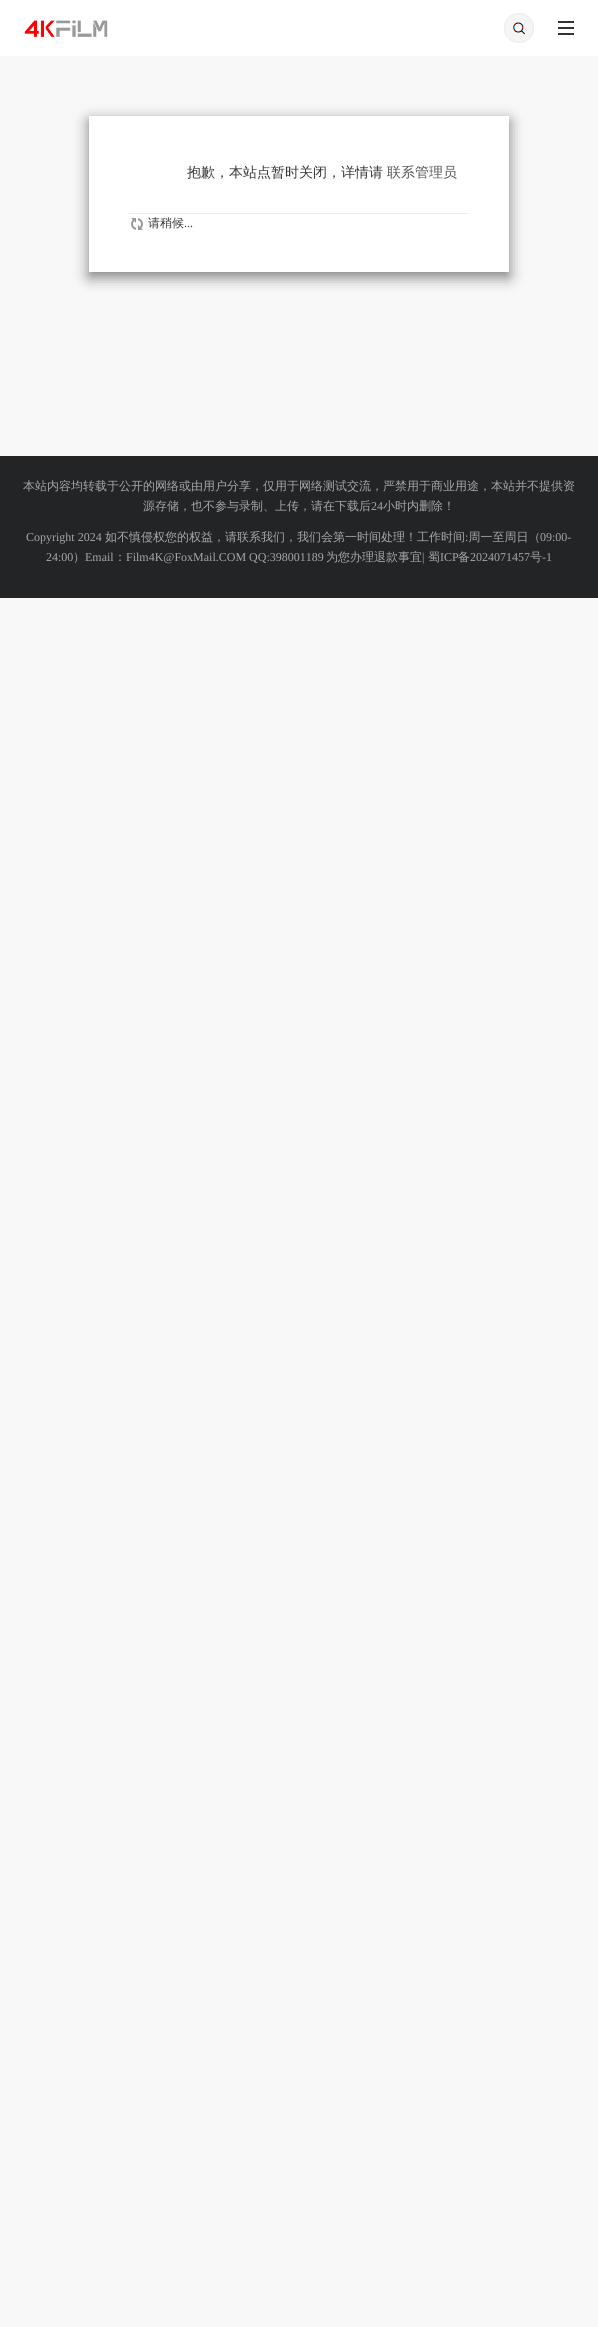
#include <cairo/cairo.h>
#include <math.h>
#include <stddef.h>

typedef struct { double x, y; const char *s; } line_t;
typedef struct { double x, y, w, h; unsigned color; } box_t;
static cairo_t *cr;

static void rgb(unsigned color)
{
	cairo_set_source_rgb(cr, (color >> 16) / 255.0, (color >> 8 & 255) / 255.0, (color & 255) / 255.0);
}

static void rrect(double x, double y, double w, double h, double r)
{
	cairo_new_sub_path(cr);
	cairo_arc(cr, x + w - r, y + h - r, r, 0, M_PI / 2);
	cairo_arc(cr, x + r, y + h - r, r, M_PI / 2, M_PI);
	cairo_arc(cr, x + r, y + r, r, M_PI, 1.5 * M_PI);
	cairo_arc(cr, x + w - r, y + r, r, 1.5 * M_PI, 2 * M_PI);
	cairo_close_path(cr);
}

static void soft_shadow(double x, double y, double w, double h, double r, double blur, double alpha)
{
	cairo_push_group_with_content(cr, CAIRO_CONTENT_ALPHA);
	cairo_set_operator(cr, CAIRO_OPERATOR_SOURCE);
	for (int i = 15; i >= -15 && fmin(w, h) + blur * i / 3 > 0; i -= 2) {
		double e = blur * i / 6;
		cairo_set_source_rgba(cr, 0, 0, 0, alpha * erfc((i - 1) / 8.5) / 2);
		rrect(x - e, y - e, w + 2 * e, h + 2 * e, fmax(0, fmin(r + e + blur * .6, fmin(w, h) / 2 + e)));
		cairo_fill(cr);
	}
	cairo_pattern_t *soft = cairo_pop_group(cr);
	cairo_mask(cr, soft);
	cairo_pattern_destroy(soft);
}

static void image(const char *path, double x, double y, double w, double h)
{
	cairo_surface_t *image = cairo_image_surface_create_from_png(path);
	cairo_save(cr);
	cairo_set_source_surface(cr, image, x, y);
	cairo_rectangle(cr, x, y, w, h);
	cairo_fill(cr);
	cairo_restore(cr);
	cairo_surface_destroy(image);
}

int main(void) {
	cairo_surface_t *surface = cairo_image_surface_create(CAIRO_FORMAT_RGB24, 598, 2327);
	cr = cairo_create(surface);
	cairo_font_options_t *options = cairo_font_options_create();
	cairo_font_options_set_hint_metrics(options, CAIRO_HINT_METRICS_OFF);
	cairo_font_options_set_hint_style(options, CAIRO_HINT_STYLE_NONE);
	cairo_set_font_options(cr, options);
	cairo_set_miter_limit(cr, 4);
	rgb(0xf8f8f8);
	cairo_paint(cr);
	rgb(0xffffff);
	cairo_rectangle(cr, 0, 0, 598, 56);
	cairo_fill(cr);
	image("img/1.png", 24, 20, 84, 17);
	image("img/2.png", 504, 13, 30, 30);
	{
		static const box_t items[] = {
			{558, 21, 16, 2, 0x333333},
			{558, 27, 16, 2, 0x333333},
			{558, 33, 16, 2, 0x333333},
		};
		for (size_t i = 0; i < sizeof items / sizeof *items; i++) {
			rgb(items[i].color);
			cairo_rectangle(cr, items[i].x, items[i].y, items[i].w, items[i].h);
			cairo_fill(cr);
		}
	}
	rgb(0x000000);
	soft_shadow(89, 121, 420, 156, 0, 7.5, 0.5);
	rgb(0xffffff);
	cairo_rectangle(cr, 89, 116, 420, 156);
	cairo_fill(cr);
	rgb(0xededed);
	cairo_rectangle(cr, 129, 213, 340, 1);
	cairo_fill(cr);
	image("img/3.png", 131, 218, 12, 12);
	rgb(0x232425);
	cairo_rectangle(cr, 0, 456, 598, 142);
	cairo_fill(cr);
	cairo_select_font_face(cr, "WenQuanYi Zen Hei Medium", CAIRO_FONT_SLANT_NORMAL, CAIRO_FONT_WEIGHT_NORMAL);
	cairo_set_font_size(cr, 14);
	rgb(0x363636);
	cairo_move_to(cr, 187, 177);
	cairo_show_text(cr, "抱歉，本站点暂时关闭，详情请");
	rgb(0x555555);
	cairo_move_to(cr, 387, 177);
	cairo_show_text(cr, "联系管理员");
	cairo_set_font_size(cr, 12);
	rgb(0x363636);
	cairo_move_to(cr, 148, 227);
	cairo_show_text(cr, "请稍候");
	cairo_select_font_face(cr, "Liberation Serif", CAIRO_FONT_SLANT_NORMAL, CAIRO_FONT_WEIGHT_NORMAL);
	cairo_move_to(cr, 184, 227);
	cairo_show_text(cr, "...");
	cairo_select_font_face(cr, "WenQuanYi Zen Hei Medium", CAIRO_FONT_SLANT_NORMAL, CAIRO_FONT_WEIGHT_NORMAL);
	rgb(0xa7a7a8);
	cairo_move_to(cr, 23, 490);
	cairo_show_text(cr, "本站内容均转载于公开的网络或由用户分享，仅用于网络测试交流，严禁用于商业用途，本站并不提供资");
	cairo_move_to(cr, 143, 510);
	cairo_show_text(cr, "源存储，也不参与录制、上传，请在下载后");
	cairo_select_font_face(cr, "Liberation Serif", CAIRO_FONT_SLANT_NORMAL, CAIRO_FONT_WEIGHT_NORMAL);
	cairo_move_to(cr, 371, 510);
	cairo_show_text(cr, "24");
	cairo_select_font_face(cr, "WenQuanYi Zen Hei Medium", CAIRO_FONT_SLANT_NORMAL, CAIRO_FONT_WEIGHT_NORMAL);
	cairo_move_to(cr, 383, 510);
	cairo_show_text(cr, "小时内删除！");
	cairo_select_font_face(cr, "Liberation Serif", CAIRO_FONT_SLANT_NORMAL, CAIRO_FONT_WEIGHT_NORMAL);
	cairo_move_to(cr, 26, 541);
	cairo_show_text(cr, "Copyright 2024");
	cairo_select_font_face(cr, "WenQuanYi Zen Hei Medium", CAIRO_FONT_SLANT_NORMAL, CAIRO_FONT_WEIGHT_NORMAL);
	cairo_move_to(cr, 105, 541);
	cairo_show_text(cr, "如不慎侵权您的权益，请联系我们，我们会第一时间处理！工作时间 周一至周日（");
	cairo_select_font_face(cr, "Liberation Serif", CAIRO_FONT_SLANT_NORMAL, CAIRO_FONT_WEIGHT_NORMAL);
	{
		static const line_t items[] = {
			{540, 541, "09:00-"},
			{465, 541, ":"},
			{46, 561, "24:00"},
		};
		for (size_t i = 0; i < sizeof items / sizeof *items; i++) {
			cairo_move_to(cr, items[i].x, items[i].y);
			cairo_show_text(cr, items[i].s);
		}
	}
	cairo_select_font_face(cr, "WenQuanYi Zen Hei Medium", CAIRO_FONT_SLANT_NORMAL, CAIRO_FONT_WEIGHT_NORMAL);
	cairo_move_to(cr, 73, 561);
	cairo_show_text(cr, "）");
	cairo_select_font_face(cr, "Liberation Serif", CAIRO_FONT_SLANT_NORMAL, CAIRO_FONT_WEIGHT_NORMAL);
	cairo_move_to(cr, 85, 561);
	cairo_show_text(cr, "Email");
	cairo_select_font_face(cr, "WenQuanYi Zen Hei Medium", CAIRO_FONT_SLANT_NORMAL, CAIRO_FONT_WEIGHT_NORMAL);
	cairo_move_to(cr, 114, 561);
	cairo_show_text(cr, "：");
	cairo_select_font_face(cr, "Liberation Serif", CAIRO_FONT_SLANT_NORMAL, CAIRO_FONT_WEIGHT_NORMAL);
	cairo_move_to(cr, 126, 561);
	cairo_show_text(cr, "Film4K@FoxMail.COM QQ:398001189");
	cairo_select_font_face(cr, "WenQuanYi Zen Hei Medium", CAIRO_FONT_SLANT_NORMAL, CAIRO_FONT_WEIGHT_NORMAL);
	cairo_move_to(cr, 326, 561);
	cairo_show_text(cr, "为您办理退款事宜");
	cairo_select_font_face(cr, "Liberation Serif", CAIRO_FONT_SLANT_NORMAL, CAIRO_FONT_WEIGHT_NORMAL);
	cairo_move_to(cr, 422, 561);
	cairo_show_text(cr, "|");
	cairo_select_font_face(cr, "WenQuanYi Zen Hei Medium", CAIRO_FONT_SLANT_NORMAL, CAIRO_FONT_WEIGHT_NORMAL);
	cairo_move_to(cr, 428, 561);
	cairo_show_text(cr, "蜀");
	cairo_select_font_face(cr, "Liberation Serif", CAIRO_FONT_SLANT_NORMAL, CAIRO_FONT_WEIGHT_NORMAL);
	cairo_move_to(cr, 440, 561);
	cairo_show_text(cr, "ICP");
	cairo_select_font_face(cr, "WenQuanYi Zen Hei Medium", CAIRO_FONT_SLANT_NORMAL, CAIRO_FONT_WEIGHT_NORMAL);
	cairo_move_to(cr, 458, 561);
	cairo_show_text(cr, "备");
	cairo_select_font_face(cr, "Liberation Serif", CAIRO_FONT_SLANT_NORMAL, CAIRO_FONT_WEIGHT_NORMAL);
	cairo_move_to(cr, 470, 561);
	cairo_show_text(cr, "2024071457");
	cairo_select_font_face(cr, "WenQuanYi Zen Hei Medium", CAIRO_FONT_SLANT_NORMAL, CAIRO_FONT_WEIGHT_NORMAL);
	cairo_move_to(cr, 530, 561);
	cairo_show_text(cr, "号");
	cairo_select_font_face(cr, "Liberation Serif", CAIRO_FONT_SLANT_NORMAL, CAIRO_FONT_WEIGHT_NORMAL);
	cairo_move_to(cr, 542, 561);
	cairo_show_text(cr, "-1");
	cairo_surface_write_to_png(surface, "page.png");
	cairo_font_options_destroy(options);
	cairo_destroy(cr);
	cairo_surface_destroy(surface);
	return 0;
}
